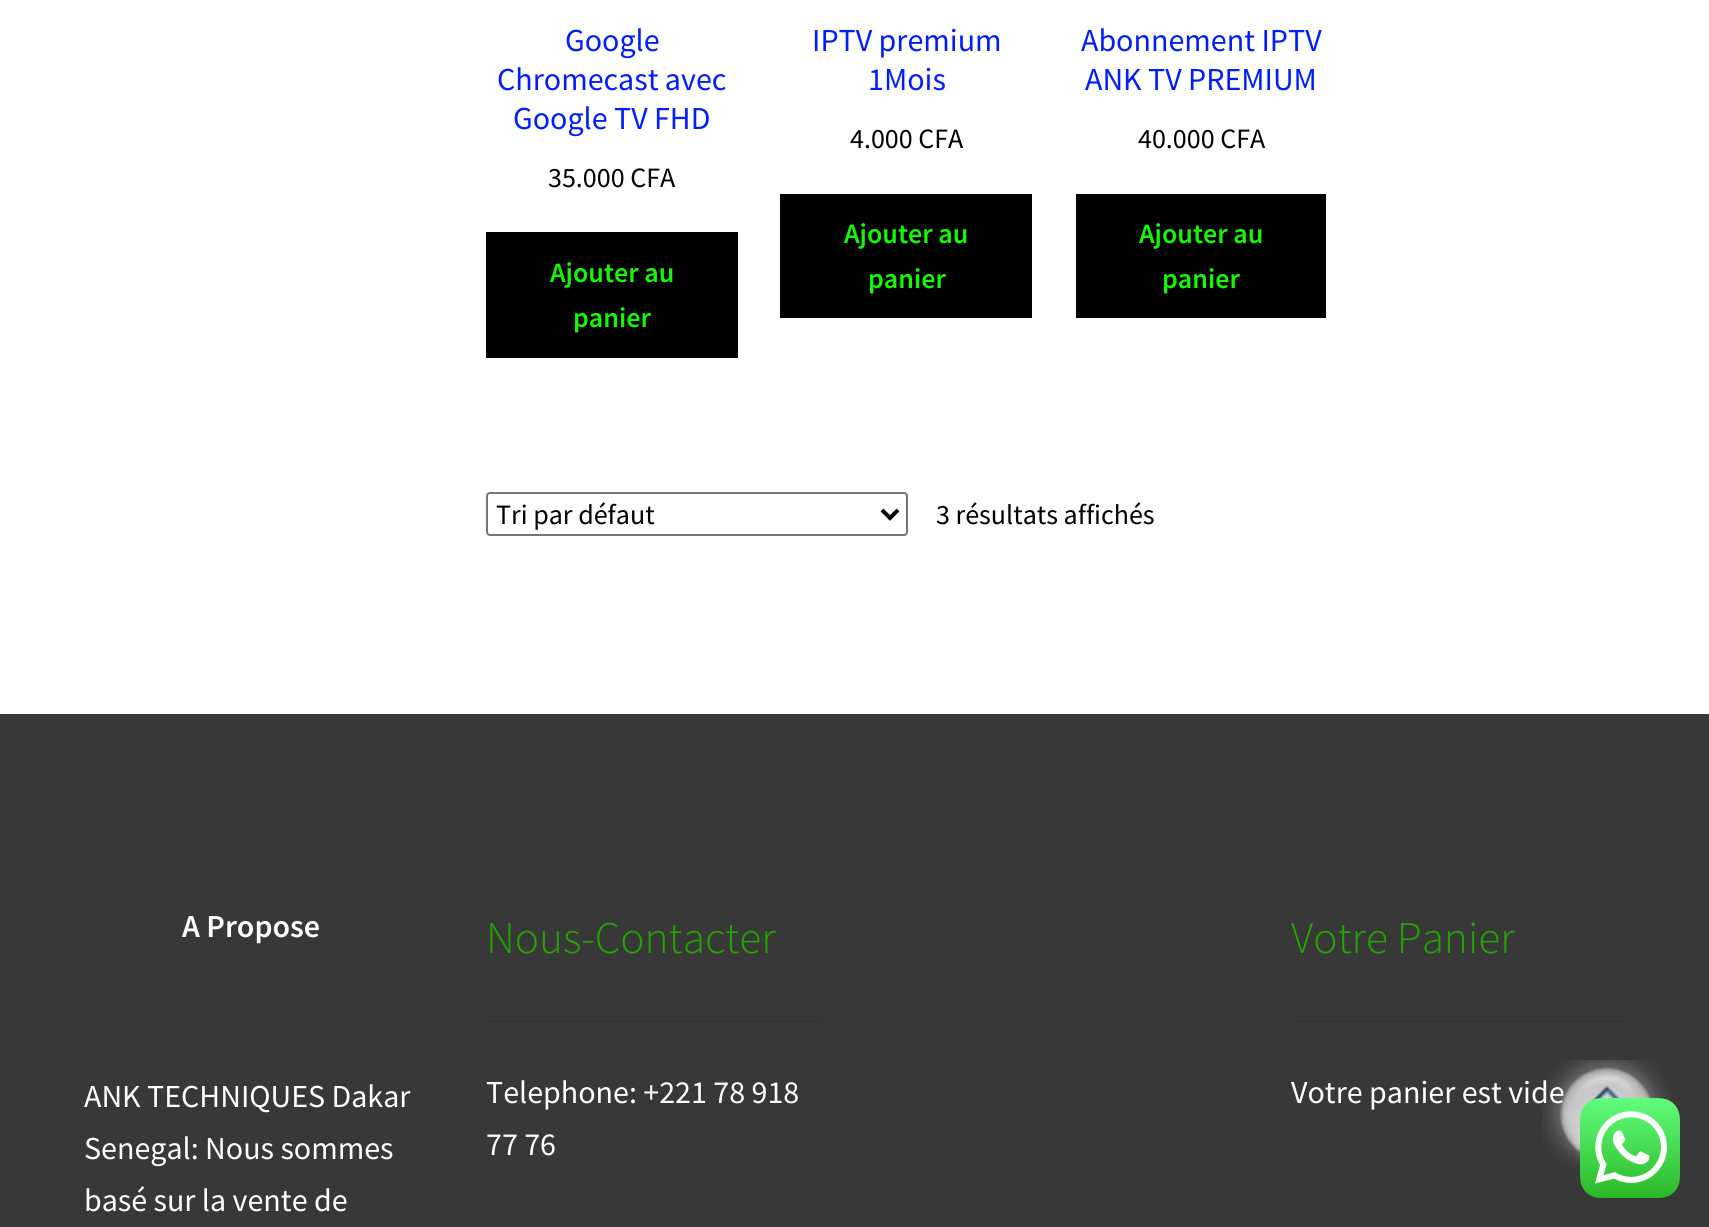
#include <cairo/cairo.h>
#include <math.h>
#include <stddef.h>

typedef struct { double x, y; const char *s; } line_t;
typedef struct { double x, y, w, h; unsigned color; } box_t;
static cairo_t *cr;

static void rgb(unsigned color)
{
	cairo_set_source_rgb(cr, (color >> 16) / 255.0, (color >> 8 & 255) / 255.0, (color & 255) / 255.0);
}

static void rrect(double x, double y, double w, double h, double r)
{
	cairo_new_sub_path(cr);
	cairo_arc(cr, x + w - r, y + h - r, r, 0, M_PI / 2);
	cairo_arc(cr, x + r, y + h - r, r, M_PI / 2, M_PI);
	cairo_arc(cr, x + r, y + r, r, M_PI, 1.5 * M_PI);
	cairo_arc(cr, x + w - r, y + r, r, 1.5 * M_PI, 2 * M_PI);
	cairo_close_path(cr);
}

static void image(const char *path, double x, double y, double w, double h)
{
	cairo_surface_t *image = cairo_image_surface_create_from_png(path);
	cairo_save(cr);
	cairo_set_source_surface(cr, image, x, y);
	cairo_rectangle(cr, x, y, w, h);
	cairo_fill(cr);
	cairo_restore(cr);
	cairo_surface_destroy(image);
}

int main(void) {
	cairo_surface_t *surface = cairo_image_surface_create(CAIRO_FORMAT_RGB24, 1709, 1227);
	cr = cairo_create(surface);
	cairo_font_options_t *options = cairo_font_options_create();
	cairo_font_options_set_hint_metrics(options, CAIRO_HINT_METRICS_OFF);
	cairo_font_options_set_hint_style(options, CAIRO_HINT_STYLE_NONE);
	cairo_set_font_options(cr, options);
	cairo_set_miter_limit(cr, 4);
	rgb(0xffffff);
	cairo_paint(cr);
	{
		static const box_t items[] = {
			{486, 232, 252, 126, 0x000000},
			{780, 194, 252, 124, 0x000000},
			{1076, 194, 250, 124, 0x000000},
		};
		for (size_t i = 0; i < sizeof items / sizeof *items; i++) {
			rgb(items[i].color);
			cairo_rectangle(cr, items[i].x, items[i].y, items[i].w, items[i].h);
			cairo_fill(cr);
		}
	}
	rrect(487, 493, 420, 42, 3);
	rgb(0x767676);
	cairo_stroke(cr);
	cairo_new_path(cr);
	cairo_move_to(cr, 882, 510);
	cairo_line_to(cr, 890, 518);
	cairo_line_to(cr, 898, 510);
	rgb(0x000000);
	cairo_set_line_width(cr, 4);
	cairo_stroke(cr);
	{
		static const box_t items[] = {
			{0, 714, 1709, 513, 0x383838},
			{486, 1020, 336, 2, 0x353535},
			{1290, 1020, 336, 2, 0x353535},
		};
		for (size_t i = 0; i < sizeof items / sizeof *items; i++) {
			rgb(items[i].color);
			cairo_rectangle(cr, items[i].x, items[i].y, items[i].w, items[i].h);
			cairo_fill(cr);
		}
	}
	cairo_select_font_face(cr, "Source Sans Pro", CAIRO_FONT_SLANT_NORMAL, CAIRO_FONT_WEIGHT_NORMAL);
	cairo_set_font_size(cr, 32);
	rgb(0x001dfc);
	{
		static const line_t items[] = {
			{565, 51, "Google"},
			{497, 90, "Chromecast avec"},
			{513, 129, "Google TV FHD"},
		};
		for (size_t i = 0; i < sizeof items / sizeof *items; i++) {
			cairo_move_to(cr, items[i].x, items[i].y);
			cairo_show_text(cr, items[i].s);
		}
	}
	cairo_set_font_size(cr, 28);
	rgb(0x000000);
	cairo_move_to(cr, 548, 187);
	cairo_show_text(cr, "35.000 CFA");
	cairo_select_font_face(cr, "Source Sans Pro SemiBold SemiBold", CAIRO_FONT_SLANT_NORMAL, CAIRO_FONT_WEIGHT_NORMAL);
	rgb(0x14f900);
	cairo_move_to(cr, 550, 282);
	cairo_show_text(cr, "Ajouter au");
	cairo_move_to(cr, 573, 327);
	cairo_show_text(cr, "panier");
	cairo_select_font_face(cr, "Source Sans Pro", CAIRO_FONT_SLANT_NORMAL, CAIRO_FONT_WEIGHT_NORMAL);
	cairo_set_font_size(cr, 32);
	rgb(0x001dfc);
	cairo_move_to(cr, 812, 51);
	cairo_show_text(cr, "IPTV premium");
	cairo_move_to(cr, 868, 90);
	cairo_show_text(cr, "1Mois");
	cairo_set_font_size(cr, 28);
	rgb(0x000000);
	cairo_move_to(cr, 850, 148);
	cairo_show_text(cr, "4.000 CFA");
	cairo_select_font_face(cr, "Source Sans Pro SemiBold SemiBold", CAIRO_FONT_SLANT_NORMAL, CAIRO_FONT_WEIGHT_NORMAL);
	rgb(0x14f900);
	cairo_move_to(cr, 844, 243);
	cairo_show_text(cr, "Ajouter au");
	cairo_move_to(cr, 868, 288);
	cairo_show_text(cr, "panier");
	cairo_select_font_face(cr, "Source Sans Pro", CAIRO_FONT_SLANT_NORMAL, CAIRO_FONT_WEIGHT_NORMAL);
	cairo_set_font_size(cr, 32);
	rgb(0x001dfc);
	cairo_move_to(cr, 1081, 51);
	cairo_show_text(cr, "Abonnement IPTV");
	cairo_move_to(cr, 1085, 90);
	cairo_show_text(cr, "ANK TV PREMIUM");
	cairo_set_font_size(cr, 28);
	rgb(0x000000);
	cairo_move_to(cr, 1138, 148);
	cairo_show_text(cr, "40.000 CFA");
	cairo_select_font_face(cr, "Source Sans Pro SemiBold SemiBold", CAIRO_FONT_SLANT_NORMAL, CAIRO_FONT_WEIGHT_NORMAL);
	rgb(0x14f900);
	cairo_move_to(cr, 1139, 243);
	cairo_show_text(cr, "Ajouter au");
	cairo_move_to(cr, 1162, 288);
	cairo_show_text(cr, "panier");
	cairo_select_font_face(cr, "Source Sans Pro", CAIRO_FONT_SLANT_NORMAL, CAIRO_FONT_WEIGHT_NORMAL);
	rgb(0x000000);
	cairo_move_to(cr, 496, 524);
	cairo_show_text(cr, "Tri par défaut");
	cairo_move_to(cr, 936, 524);
	cairo_show_text(cr, "3 résultats affichés");
	cairo_select_font_face(cr, "Source Sans Pro SemiBold SemiBold", CAIRO_FONT_SLANT_NORMAL, CAIRO_FONT_WEIGHT_NORMAL);
	cairo_set_font_size(cr, 32);
	rgb(0xffffff);
	cairo_move_to(cr, 182, 937);
	cairo_show_text(cr, "A Propose");
	cairo_select_font_face(cr, "Source Sans Pro", CAIRO_FONT_SLANT_NORMAL, CAIRO_FONT_WEIGHT_NORMAL);
	{
		static const line_t items[] = {
			{84, 1107, "ANK TECHNIQUES Dakar"},
			{84, 1159, "Senegal: Nous sommes"},
			{84, 1211, "basé sur la vente de"},
		};
		for (size_t i = 0; i < sizeof items / sizeof *items; i++) {
			cairo_move_to(cr, items[i].x, items[i].y);
			cairo_show_text(cr, items[i].s);
		}
	}
	cairo_select_font_face(cr, "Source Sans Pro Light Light", CAIRO_FONT_SLANT_NORMAL, CAIRO_FONT_WEIGHT_NORMAL);
	cairo_set_font_size(cr, 45.25);
	rgb(0x23a500);
	cairo_move_to(cr, 486, 953);
	cairo_show_text(cr, "Nous-Contacter");
	cairo_select_font_face(cr, "Source Sans Pro", CAIRO_FONT_SLANT_NORMAL, CAIRO_FONT_WEIGHT_NORMAL);
	cairo_set_font_size(cr, 32);
	rgb(0xffffff);
	cairo_move_to(cr, 486, 1103);
	cairo_show_text(cr, "Telephone: +221 78 918");
	cairo_move_to(cr, 486, 1155);
	cairo_show_text(cr, "77 76");
	cairo_select_font_face(cr, "Source Sans Pro Light Light", CAIRO_FONT_SLANT_NORMAL, CAIRO_FONT_WEIGHT_NORMAL);
	cairo_set_font_size(cr, 45.25);
	rgb(0x23a500);
	cairo_move_to(cr, 1291, 953);
	cairo_show_text(cr, "Votre Panier");
	cairo_select_font_face(cr, "Source Sans Pro", CAIRO_FONT_SLANT_NORMAL, CAIRO_FONT_WEIGHT_NORMAL);
	cairo_set_font_size(cr, 32);
	rgb(0xffffff);
	cairo_move_to(cr, 1291, 1103);
	cairo_show_text(cr, "Votre panier est vide");
	image("img/1.png", 1542, 1060, 128, 114);
	image("img/2.png", 1580, 1098, 100, 100);
	cairo_surface_write_to_png(surface, "page.png");
	cairo_font_options_destroy(options);
	cairo_destroy(cr);
	cairo_surface_destroy(surface);
	return 0;
}
